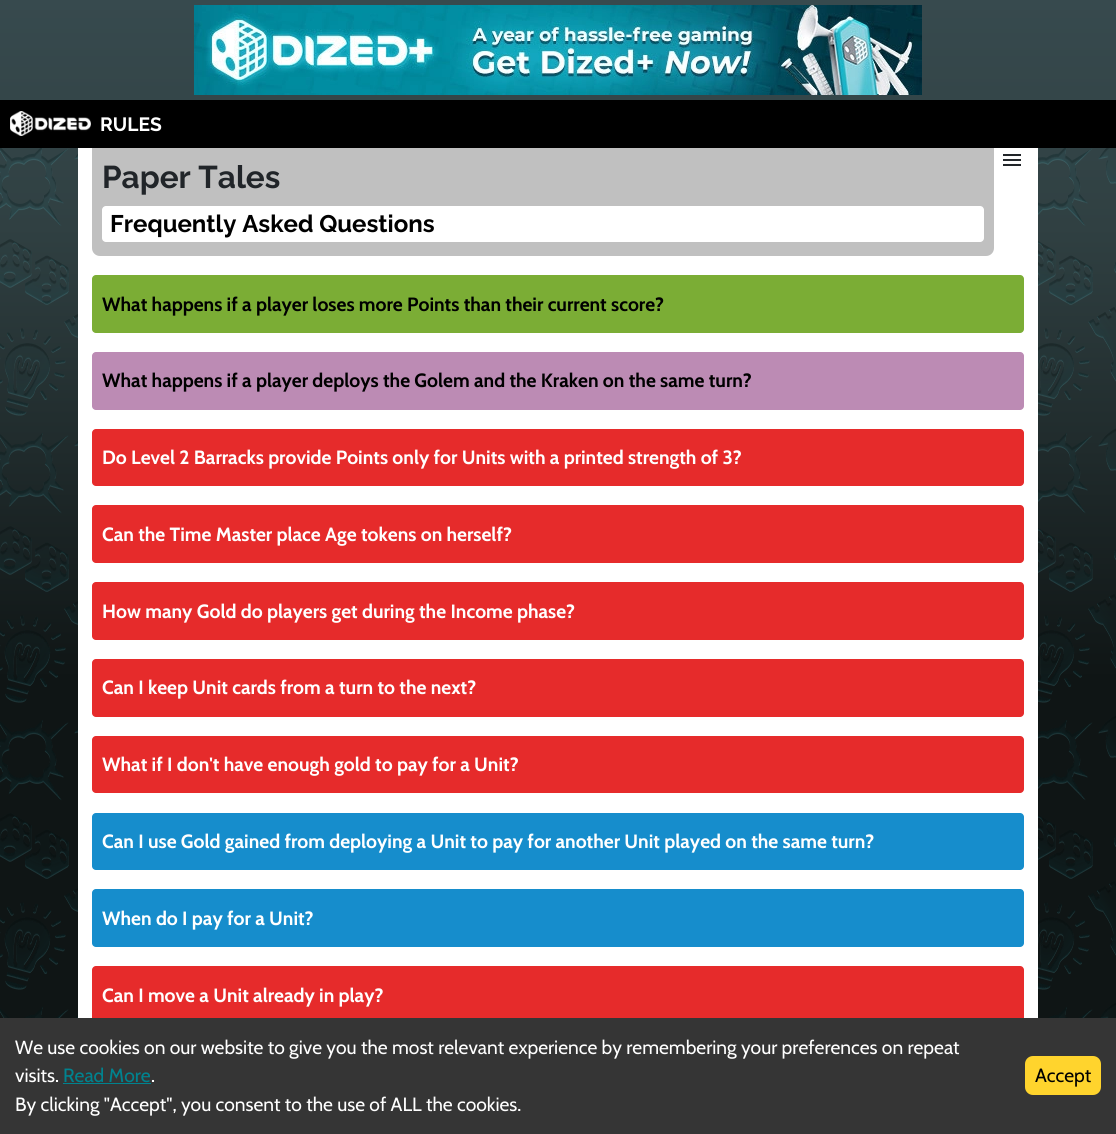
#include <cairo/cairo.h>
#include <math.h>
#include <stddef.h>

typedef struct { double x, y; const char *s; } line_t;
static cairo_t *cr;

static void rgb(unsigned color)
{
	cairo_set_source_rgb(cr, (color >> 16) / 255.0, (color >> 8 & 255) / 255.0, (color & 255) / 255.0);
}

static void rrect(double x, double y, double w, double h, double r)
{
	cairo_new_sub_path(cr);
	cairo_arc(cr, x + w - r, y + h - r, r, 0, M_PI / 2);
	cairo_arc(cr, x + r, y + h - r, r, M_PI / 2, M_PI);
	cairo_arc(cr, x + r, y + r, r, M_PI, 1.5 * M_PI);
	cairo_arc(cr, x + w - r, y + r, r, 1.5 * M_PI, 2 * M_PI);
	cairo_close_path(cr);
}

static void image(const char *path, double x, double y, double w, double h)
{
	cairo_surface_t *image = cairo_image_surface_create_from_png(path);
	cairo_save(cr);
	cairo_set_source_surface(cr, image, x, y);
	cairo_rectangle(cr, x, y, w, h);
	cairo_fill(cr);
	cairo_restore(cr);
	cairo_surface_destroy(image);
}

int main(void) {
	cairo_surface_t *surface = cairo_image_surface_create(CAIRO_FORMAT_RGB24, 1116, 1134);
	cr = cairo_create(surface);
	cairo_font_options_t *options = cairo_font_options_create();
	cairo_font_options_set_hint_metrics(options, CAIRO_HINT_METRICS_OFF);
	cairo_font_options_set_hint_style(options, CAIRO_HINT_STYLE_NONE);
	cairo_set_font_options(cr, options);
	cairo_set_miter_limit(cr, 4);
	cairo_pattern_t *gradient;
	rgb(0xffffff);
	cairo_paint(cr);
	gradient = cairo_pattern_create_linear(558, 0, 558, 1134);
	cairo_pattern_add_color_stop_rgba(gradient, 0, 0.216, 0.29, 0.306, 1);
	cairo_pattern_add_color_stop_rgba(gradient, 0.2, 0.188, 0.251, 0.259, 1);
	cairo_pattern_add_color_stop_rgba(gradient, 0.6, 0.059, 0.082, 0.082, 1);
	cairo_set_source(cr, gradient);
	cairo_pattern_destroy(gradient);
	cairo_rectangle(cr, 0, 0, 1116, 1018);
	cairo_fill(cr);
	image("img/1.png", 194, 5, 728, 90);
	rgb(0x000000);
	cairo_rectangle(cr, 0, 100, 1116, 48);
	cairo_fill(cr);
	image("img/2.png", 10, 111, 81, 25);
	image("img/3.png", 0, 148, 1116, 870);
	rgb(0xffffff);
	cairo_rectangle(cr, 78, 148, 960, 870);
	cairo_fill(cr);
	image("img/4.png", 1003, 154, 18, 12);
	rgb(0xc0c0c0);
	cairo_new_path(cr);
	cairo_move_to(cr, 92, 148);
	cairo_line_to(cr, 994, 148);
	cairo_line_to(cr, 994, 248);
	cairo_curve_to(cr, 994, 252.5, 990.5, 256, 986, 256);
	cairo_line_to(cr, 100, 256);
	cairo_curve_to(cr, 95.5, 256, 92, 252.5, 92, 248);
	cairo_close_path(cr);
	cairo_fill(cr);
	rgb(0xffffff);
	rrect(102, 206, 882, 36, 4);
	cairo_fill(cr);
	rgb(0x7bad35);
	rrect(92, 275, 932, 58, 4);
	cairo_fill(cr);
	rgb(0xbc8bb4);
	rrect(92, 352, 932, 58, 4);
	cairo_fill(cr);
	rgb(0xe62b2b);
	rrect(92, 429, 932, 57, 4);
	cairo_fill(cr);
	rrect(92, 505, 932, 58, 4);
	cairo_fill(cr);
	rrect(92, 582, 932, 58, 4);
	cairo_fill(cr);
	rrect(92, 659, 932, 58, 4);
	cairo_fill(cr);
	rrect(92, 736, 932, 57, 4);
	cairo_fill(cr);
	rgb(0x168dcc);
	rrect(92, 813, 932, 57, 4);
	cairo_fill(cr);
	rrect(92, 889, 932, 58, 4);
	cairo_fill(cr);
	rgb(0xe62b2b);
	rrect(92, 966, 932, 58, 4);
	cairo_fill(cr);
	rgb(0x353535);
	cairo_rectangle(cr, 0, 1018, 1116, 116);
	cairo_fill(cr);
	rgb(0x00838f);
	cairo_rectangle(cr, 63, 1083, 88, 1);
	cairo_fill(cr);
	rgb(0xffd42d);
	rrect(1025, 1056, 76, 39, 8);
	cairo_fill(cr);
	cairo_select_font_face(cr, "Raleway", CAIRO_FONT_SLANT_NORMAL, CAIRO_FONT_WEIGHT_BOLD);
	cairo_set_font_size(cr, 19.2);
	rgb(0xffffff);
	cairo_move_to(cr, 100, 131);
	cairo_show_text(cr, "RULES");
	cairo_set_font_size(cr, 31.5);
	rgb(0x212529);
	cairo_move_to(cr, 102, 188);
	cairo_show_text(cr, "Paper Tales");
	cairo_set_font_size(cr, 24);
	rgb(0x000000);
	cairo_move_to(cr, 110, 232);
	cairo_show_text(cr, "Frequently Asked Questions");
	cairo_select_font_face(cr, "Cabin", CAIRO_FONT_SLANT_NORMAL, CAIRO_FONT_WEIGHT_BOLD);
	cairo_set_font_size(cr, 19.2);
	cairo_move_to(cr, 102, 311);
	cairo_show_text(cr, "What happens if a player loses more Points than their current score?");
	cairo_move_to(cr, 102, 387);
	cairo_show_text(cr, "What happens if a player deploys the Golem and the Kraken on the same turn?");
	rgb(0xffffff);
	{
		static const line_t items[] = {
			{102, 464, "Do Level 2 Barracks provide Points only for Units with a printed strength of 3?"},
			{102, 541, "Can the Time Master place Age tokens on herself?"},
			{102, 618, "How many Gold do players get during the Income phase?"},
			{102, 694, "Can I keep Unit cards from a turn to the next?"},
			{102, 771, "What if I don't have enough gold to pay for a Unit?"},
			{102, 848, "Can I use Gold gained from deploying a Unit to pay for another Unit played on the same turn?"},
			{102, 925, "When do I pay for a Unit?"},
			{102, 1002, "Can I move a Unit already in play?"},
		};
		for (size_t i = 0; i < sizeof items / sizeof *items; i++) {
			cairo_move_to(cr, items[i].x, items[i].y);
			cairo_show_text(cr, items[i].s);
		}
	}
	cairo_select_font_face(cr, "Cabin", CAIRO_FONT_SLANT_NORMAL, CAIRO_FONT_WEIGHT_NORMAL);
	cairo_move_to(cr, 15, 1054);
	cairo_show_text(cr, "We use cookies on our website to give you the most relevant experience by remembering your preferences on repeat");
	cairo_move_to(cr, 15, 1082);
	cairo_show_text(cr, "visits.");
	rgb(0x00838f);
	cairo_move_to(cr, 63, 1082);
	cairo_show_text(cr, "Read More");
	rgb(0xffffff);
	cairo_move_to(cr, 151, 1082);
	cairo_show_text(cr, ".");
	cairo_move_to(cr, 15, 1111);
	cairo_show_text(cr, "By clicking \"Accept\", you consent to the use of ALL the cookies.");
	rgb(0x000000);
	cairo_move_to(cr, 1035, 1082);
	cairo_show_text(cr, "Accept");
	cairo_surface_write_to_png(surface, "page.png");
	cairo_font_options_destroy(options);
	cairo_destroy(cr);
	cairo_surface_destroy(surface);
	return 0;
}
